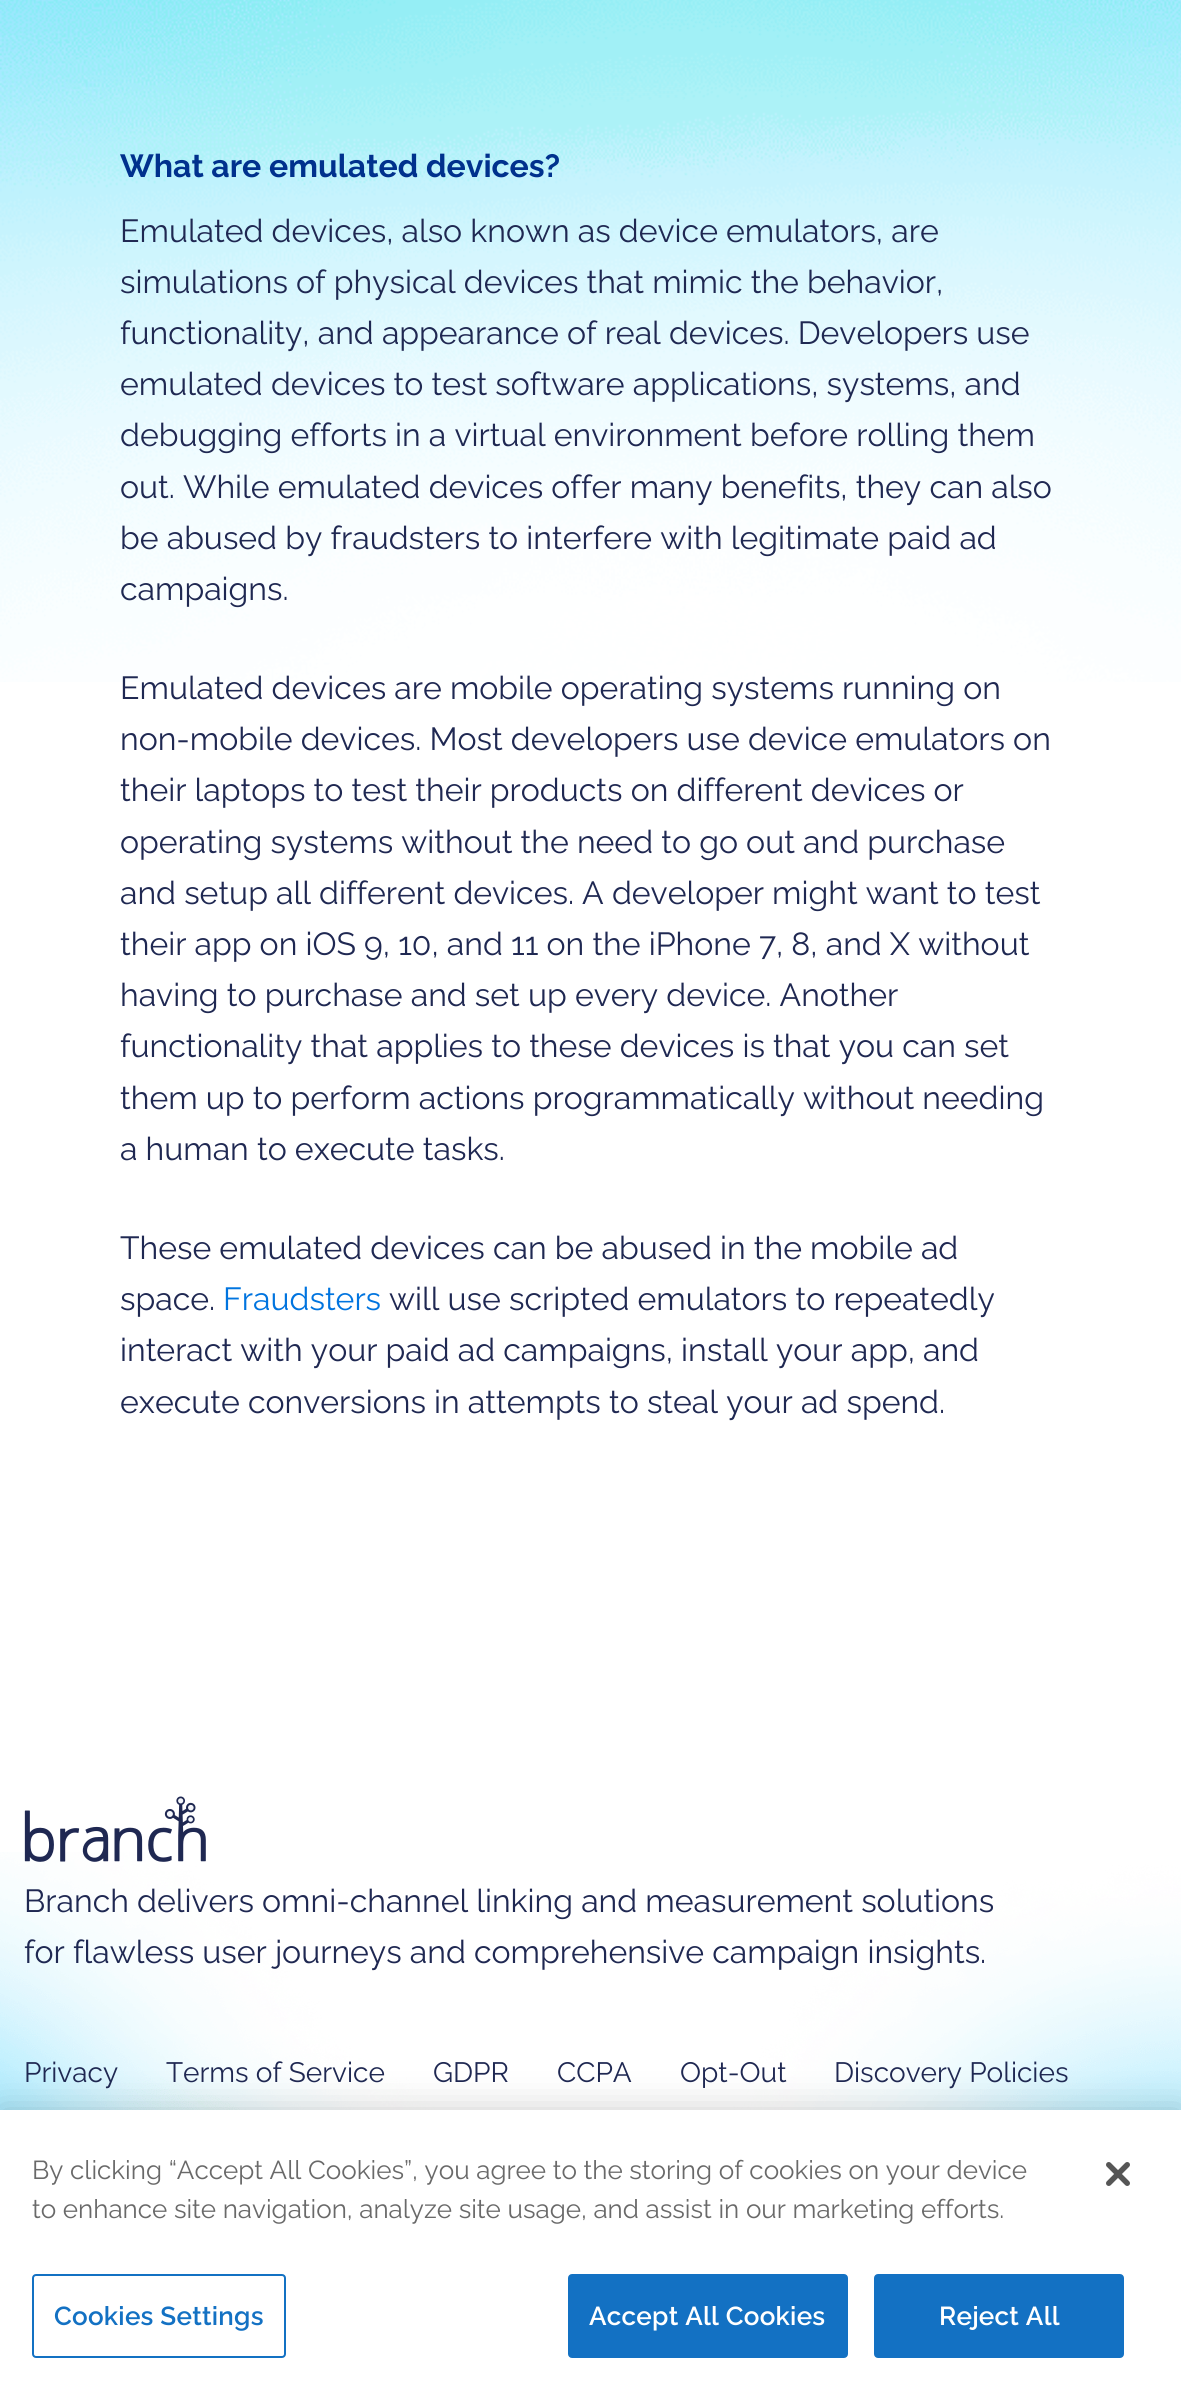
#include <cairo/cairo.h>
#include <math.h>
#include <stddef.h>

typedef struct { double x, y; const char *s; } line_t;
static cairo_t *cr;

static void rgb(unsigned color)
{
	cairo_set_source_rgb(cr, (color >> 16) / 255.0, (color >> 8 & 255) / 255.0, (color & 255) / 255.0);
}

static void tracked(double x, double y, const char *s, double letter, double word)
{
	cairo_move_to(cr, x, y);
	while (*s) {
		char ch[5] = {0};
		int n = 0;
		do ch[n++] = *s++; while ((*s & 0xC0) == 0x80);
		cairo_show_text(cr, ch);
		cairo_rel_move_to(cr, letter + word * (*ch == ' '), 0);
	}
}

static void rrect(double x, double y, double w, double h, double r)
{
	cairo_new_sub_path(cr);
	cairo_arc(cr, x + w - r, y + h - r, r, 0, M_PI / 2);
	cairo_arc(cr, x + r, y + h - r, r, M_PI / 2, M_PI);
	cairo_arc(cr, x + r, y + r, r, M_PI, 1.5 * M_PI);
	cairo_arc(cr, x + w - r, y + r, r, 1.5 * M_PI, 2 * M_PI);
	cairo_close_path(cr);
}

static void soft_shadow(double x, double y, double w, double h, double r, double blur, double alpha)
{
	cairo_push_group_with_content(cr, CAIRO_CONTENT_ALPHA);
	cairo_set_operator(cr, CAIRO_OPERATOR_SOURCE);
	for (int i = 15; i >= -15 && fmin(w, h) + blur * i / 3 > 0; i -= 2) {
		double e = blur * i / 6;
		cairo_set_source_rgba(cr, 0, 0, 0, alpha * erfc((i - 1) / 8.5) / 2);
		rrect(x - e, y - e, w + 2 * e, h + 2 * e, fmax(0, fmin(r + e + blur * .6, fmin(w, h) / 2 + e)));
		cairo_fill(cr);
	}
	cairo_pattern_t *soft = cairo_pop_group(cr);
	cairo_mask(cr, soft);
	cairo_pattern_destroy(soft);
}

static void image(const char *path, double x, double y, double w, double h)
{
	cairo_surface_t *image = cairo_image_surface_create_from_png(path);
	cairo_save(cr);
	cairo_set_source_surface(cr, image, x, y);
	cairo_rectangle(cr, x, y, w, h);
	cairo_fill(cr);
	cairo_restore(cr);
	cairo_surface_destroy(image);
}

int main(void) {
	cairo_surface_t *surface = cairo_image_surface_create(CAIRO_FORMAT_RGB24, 1181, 2397);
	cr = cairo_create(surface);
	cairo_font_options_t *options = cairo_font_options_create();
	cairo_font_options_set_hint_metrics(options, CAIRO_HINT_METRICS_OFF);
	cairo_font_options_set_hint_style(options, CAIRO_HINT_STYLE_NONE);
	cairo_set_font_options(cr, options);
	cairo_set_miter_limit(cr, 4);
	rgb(0xffffff);
	cairo_paint(cr);
	image("img/1.png", 0, 0, 1181, 682);
	image("img/2.png", 0, 1852, 1181, 258);
	image("img/3.png", 24, 1796, 182, 66);
	rgb(0x000000);
	soft_shadow(0, 2110, 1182, 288, 0, 18, 0.2);
	rgb(0xffffff);
	cairo_rectangle(cr, 0, 2110, 1181, 287);
	cairo_fill(cr);
	rrect(33, 2275, 252, 82, 3);
	rgb(0x1371c3);
	cairo_stroke(cr);
	rrect(569, 2275, 278, 82, 3);
	cairo_fill_preserve(cr);
	cairo_stroke(cr);
	rrect(875, 2275, 248, 82, 3);
	cairo_fill_preserve(cr);
	cairo_stroke(cr);
	image("img/4.png", 1106, 2162, 24, 24);
	cairo_select_font_face(cr, "Raleway", CAIRO_FONT_SLANT_NORMAL, CAIRO_FONT_WEIGHT_BOLD);
	cairo_set_font_size(cr, 32);
	rgb(0x00318d);
	cairo_move_to(cr, 120, 177);
	cairo_show_text(cr, "What are emulated devices?");
	cairo_select_font_face(cr, "Raleway", CAIRO_FONT_SLANT_NORMAL, CAIRO_FONT_WEIGHT_NORMAL);
	rgb(0x1f2852);
	{
		static const line_t items[] = {
			{120, 242, "Emulated devices, also known as device emulators, are"},
			{120, 293, "simulations of physical devices that mimic the behavior,"},
			{120, 344, "functionality, and appearance of real devices. Developers use"},
			{120, 395, "emulated devices to test software applications, systems, and"},
			{120, 446, "debugging efforts in a virtual environment before rolling them"},
			{120, 498, "out. While emulated devices offer many benefits, they can also"},
			{120, 549, "be abused by fraudsters to interfere with legitimate paid ad"},
			{120, 600, "campaigns."},
			{120, 699, "Emulated devices are mobile operating systems running on"},
			{120, 750, "non-mobile devices. Most developers use device emulators on"},
			{120, 801, "their laptops to test their products on different devices or"},
			{120, 853, "operating systems without the need to go out and purchase"},
			{120, 904, "and setup all different devices. A developer might want to test"},
			{120, 955, "their app on iOS 9, 10, and 11 on the iPhone 7, 8, and X without"},
			{120, 1006, "having to purchase and set up every device. Another"},
			{120, 1057, "functionality that applies to these devices is that you can set"},
			{120, 1109, "them up to perform actions programmatically without needing"},
			{120, 1160, "a human to execute tasks."},
			{120, 1259, "These emulated devices can be abused in the mobile ad"},
			{120, 1310, "space."},
		};
		for (size_t i = 0; i < sizeof items / sizeof *items; i++) {
			cairo_move_to(cr, items[i].x, items[i].y);
			cairo_show_text(cr, items[i].s);
		}
	}
	rgb(0x0074df);
	cairo_move_to(cr, 223, 1310);
	cairo_show_text(cr, "Fraudsters");
	rgb(0x1f2852);
	{
		static const line_t items[] = {
			{389, 1310, "will use scripted emulators to repeatedly"},
			{120, 1361, "interact with your paid ad campaigns, install your app, and"},
			{120, 1413, "execute conversions in attempts to steal your ad spend."},
			{24, 1912, "Branch delivers omni-channel linking and measurement solutions"},
			{24, 1963, "for flawless user journeys and comprehensive campaign insights."},
		};
		for (size_t i = 0; i < sizeof items / sizeof *items; i++) {
			cairo_move_to(cr, items[i].x, items[i].y);
			cairo_show_text(cr, items[i].s);
		}
	}
	cairo_set_font_size(cr, 28);
	{
		static const line_t items[] = {
			{24, 2082, "Privacy"},
			{166, 2082, "Terms of Service"},
			{433, 2082, "GDPR"},
			{557, 2082, "CCPA"},
			{680, 2082, "Opt-Out"},
			{834, 2082, "Discovery Policies"},
		};
		for (size_t i = 0; i < sizeof items / sizeof *items; i++) {
			cairo_move_to(cr, items[i].x, items[i].y);
			cairo_show_text(cr, items[i].s);
		}
	}
	cairo_set_font_size(cr, 26);
	rgb(0x696969);
	cairo_move_to(cr, 32, 2179);
	cairo_show_text(cr, "By clicking “Accept All Cookies”, you agree to the storing of cookies on your device");
	cairo_move_to(cr, 32, 2218);
	cairo_show_text(cr, "to enhance site navigation, analyze site usage, and assist in our marketing efforts.");
	cairo_select_font_face(cr, "Raleway SemiBold", CAIRO_FONT_SLANT_NORMAL, CAIRO_FONT_WEIGHT_NORMAL);
	rgb(0x1371c3);
	tracked(54, 2325, "Cookies Settings", 0.25, 0);
	rgb(0xffffff);
	tracked(589, 2325, "Accept All Cookies", 0.25, 0);
	tracked(939, 2325, "Reject All", 0.25, 0);
	cairo_surface_write_to_png(surface, "page.png");
	cairo_font_options_destroy(options);
	cairo_destroy(cr);
	cairo_surface_destroy(surface);
	return 0;
}
